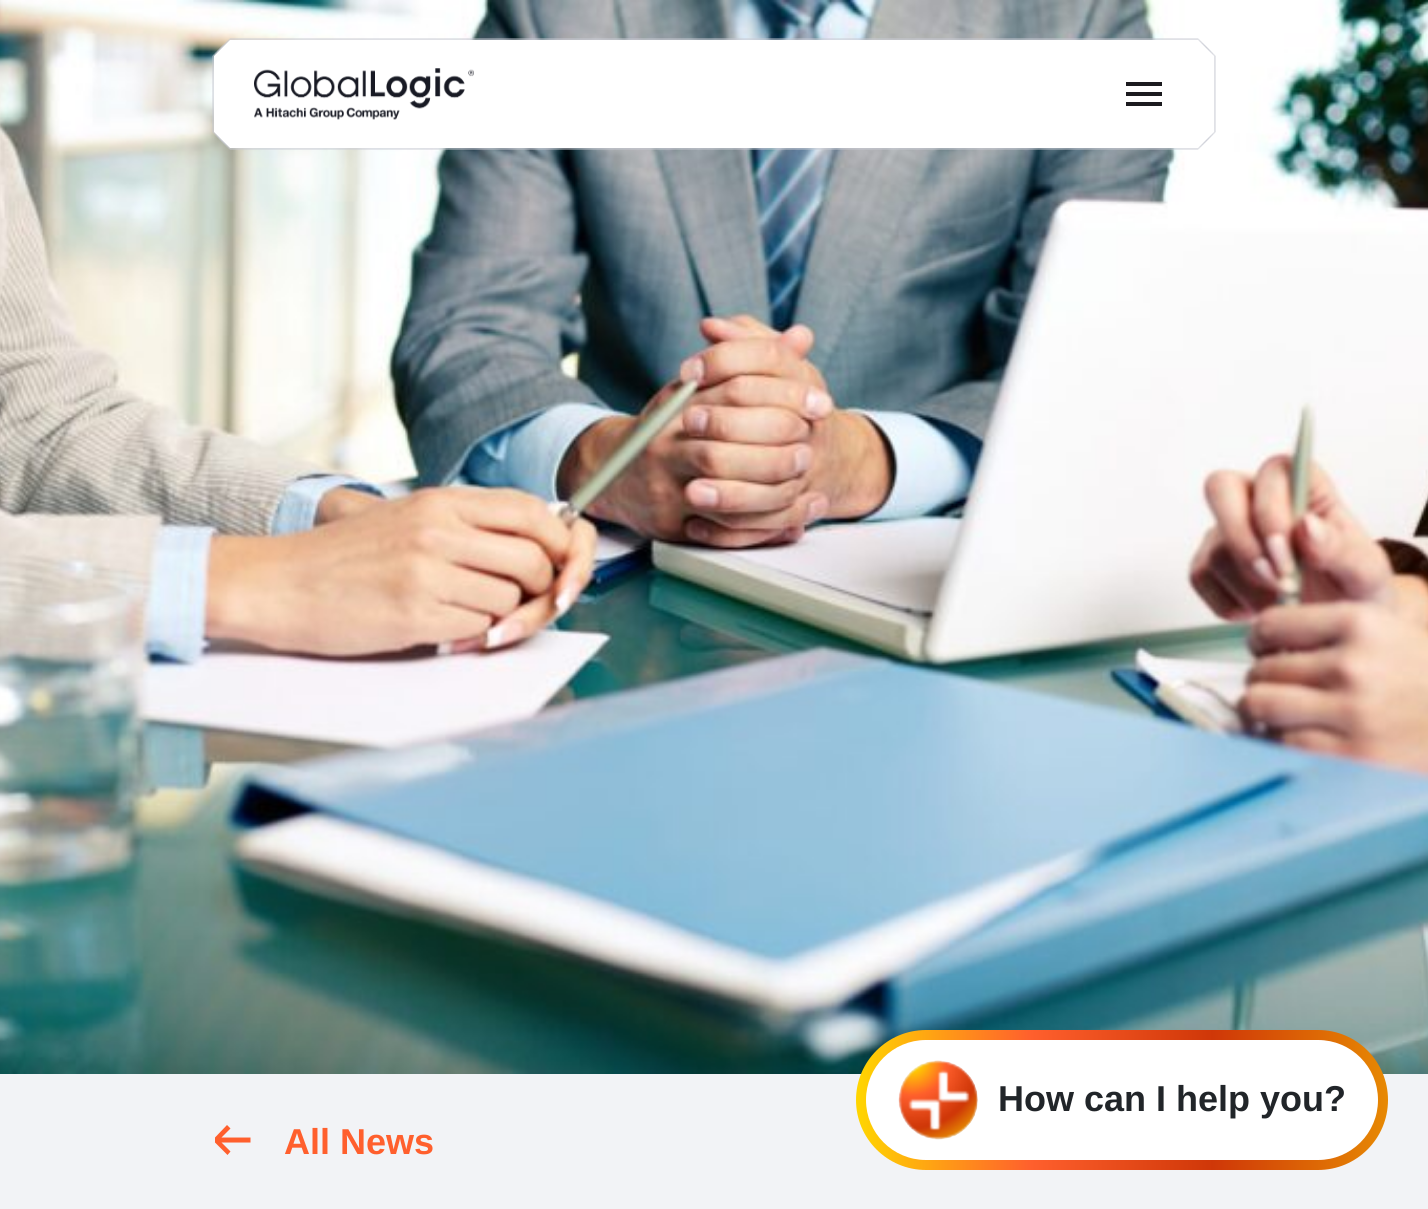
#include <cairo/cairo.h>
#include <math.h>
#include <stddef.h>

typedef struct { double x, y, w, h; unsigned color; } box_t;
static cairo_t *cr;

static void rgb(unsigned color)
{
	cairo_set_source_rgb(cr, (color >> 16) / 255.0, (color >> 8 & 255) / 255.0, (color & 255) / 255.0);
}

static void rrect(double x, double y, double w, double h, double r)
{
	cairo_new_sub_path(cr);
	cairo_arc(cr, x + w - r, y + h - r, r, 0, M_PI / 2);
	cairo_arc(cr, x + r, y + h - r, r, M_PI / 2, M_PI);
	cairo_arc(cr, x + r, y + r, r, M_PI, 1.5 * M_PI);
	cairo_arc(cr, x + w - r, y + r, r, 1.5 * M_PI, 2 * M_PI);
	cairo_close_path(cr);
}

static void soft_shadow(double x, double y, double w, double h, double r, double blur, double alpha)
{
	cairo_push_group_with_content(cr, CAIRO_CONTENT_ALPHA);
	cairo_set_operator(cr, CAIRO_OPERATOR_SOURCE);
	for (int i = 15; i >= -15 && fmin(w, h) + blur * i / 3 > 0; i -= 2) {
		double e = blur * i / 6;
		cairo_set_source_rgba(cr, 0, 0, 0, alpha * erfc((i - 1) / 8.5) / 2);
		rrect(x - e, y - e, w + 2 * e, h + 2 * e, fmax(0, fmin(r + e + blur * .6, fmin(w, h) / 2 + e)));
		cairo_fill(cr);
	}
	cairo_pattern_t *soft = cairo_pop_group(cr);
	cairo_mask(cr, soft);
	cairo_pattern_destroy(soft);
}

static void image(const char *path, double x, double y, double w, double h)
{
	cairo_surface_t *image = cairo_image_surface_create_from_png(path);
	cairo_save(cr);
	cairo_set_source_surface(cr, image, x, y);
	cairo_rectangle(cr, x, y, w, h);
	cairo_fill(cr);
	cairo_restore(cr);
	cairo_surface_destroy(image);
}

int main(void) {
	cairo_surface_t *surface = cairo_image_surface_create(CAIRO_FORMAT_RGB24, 1428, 1209);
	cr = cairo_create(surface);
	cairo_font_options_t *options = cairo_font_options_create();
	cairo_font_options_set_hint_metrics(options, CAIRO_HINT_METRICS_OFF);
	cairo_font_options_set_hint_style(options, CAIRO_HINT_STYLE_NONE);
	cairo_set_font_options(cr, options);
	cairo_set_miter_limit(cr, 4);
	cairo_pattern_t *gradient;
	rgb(0xf2f3f6);
	cairo_paint(cr);
	image("img/3.png", 0, 0, 1428, 1074);
	cairo_save(cr);
	cairo_new_path(cr);
	cairo_move_to(cr, 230, 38);
	cairo_line_to(cr, 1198, 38);
	cairo_line_to(cr, 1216, 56);
	cairo_line_to(cr, 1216, 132);
	cairo_line_to(cr, 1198, 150);
	cairo_line_to(cr, 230, 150);
	cairo_line_to(cr, 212, 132);
	cairo_line_to(cr, 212, 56);
	cairo_close_path(cr);
	cairo_clip(cr);
	rgb(0xc8cad3);
	soft_shadow(212, 38, 1004, 112, 0, 6, 0.9);
	cairo_restore(cr);
	rgb(0xffffff);
	cairo_new_path(cr);
	cairo_move_to(cr, 230, 40);
	cairo_line_to(cr, 214, 56);
	cairo_line_to(cr, 214, 132);
	cairo_line_to(cr, 230, 148);
	cairo_line_to(cr, 1198, 148);
	cairo_line_to(cr, 1214, 132);
	cairo_line_to(cr, 1214, 56);
	cairo_line_to(cr, 1198, 40);
	cairo_close_path(cr);
	cairo_fill(cr);
	image("img/1.png", 254, 68, 220, 52);
	{
		static const box_t items[] = {
			{1126, 82, 36, 4, 0x1c1b1f},
			{1126, 92, 36, 4, 0x1c1b1f},
			{1126, 102, 36, 4, 0x1c1b1f},
		};
		for (size_t i = 0; i < sizeof items / sizeof *items; i++) {
			rgb(items[i].color);
			cairo_rectangle(cr, items[i].x, items[i].y, items[i].w, items[i].h);
			cairo_fill(cr);
		}
	}
	gradient = cairo_pattern_create_linear(856, 1100, 1388, 1100);
	cairo_pattern_add_color_stop_rgba(gradient, 0, 1, 0.839, 0, 1);
	cairo_pattern_add_color_stop_rgba(gradient, 0.33, 1, 0.373, 0.176, 1);
	cairo_pattern_add_color_stop_rgba(gradient, 0.67, 0.812, 0.216, 0.031, 1);
	cairo_pattern_add_color_stop_rgba(gradient, 1, 0.906, 0.537, 0.012, 1);
	cairo_set_source(cr, gradient);
	cairo_pattern_destroy(gradient);
	rrect(856, 1030, 532, 140, 70);
	cairo_fill(cr);
	rgb(0xffffff);
	rrect(866, 1040, 512, 120, 60);
	cairo_fill(cr);
	image("img/2.png", 898, 1060, 80, 80);
	rgb(0xff5f2d);
	cairo_set_fill_rule(cr, CAIRO_FILL_RULE_EVEN_ODD);
	cairo_new_path(cr);
	cairo_move_to(cr, 221.5, 1137.5);
	cairo_line_to(cr, 230.5, 1128.5);
	cairo_line_to(cr, 227, 1125);
	cairo_line_to(cr, 215, 1137.5);
	cairo_line_to(cr, 215, 1142.5);
	cairo_line_to(cr, 227.5, 1155);
	cairo_line_to(cr, 230.5, 1151.5);
	cairo_line_to(cr, 221.5, 1142.5);
	cairo_line_to(cr, 250.5, 1142.5);
	cairo_line_to(cr, 250.5, 1137.5);
	cairo_close_path(cr);
	cairo_fill(cr);
	cairo_select_font_face(cr, "Liberation Sans", CAIRO_FONT_SLANT_NORMAL, CAIRO_FONT_WEIGHT_BOLD);
	cairo_set_font_size(cr, 36);
	rgb(0x212529);
	cairo_move_to(cr, 998, 1111);
	cairo_show_text(cr, "How can I help you?");
	rgb(0xff5f2d);
	cairo_move_to(cr, 284, 1154);
	cairo_show_text(cr, "All News");
	cairo_surface_write_to_png(surface, "page.png");
	cairo_font_options_destroy(options);
	cairo_destroy(cr);
	cairo_surface_destroy(surface);
	return 0;
}
